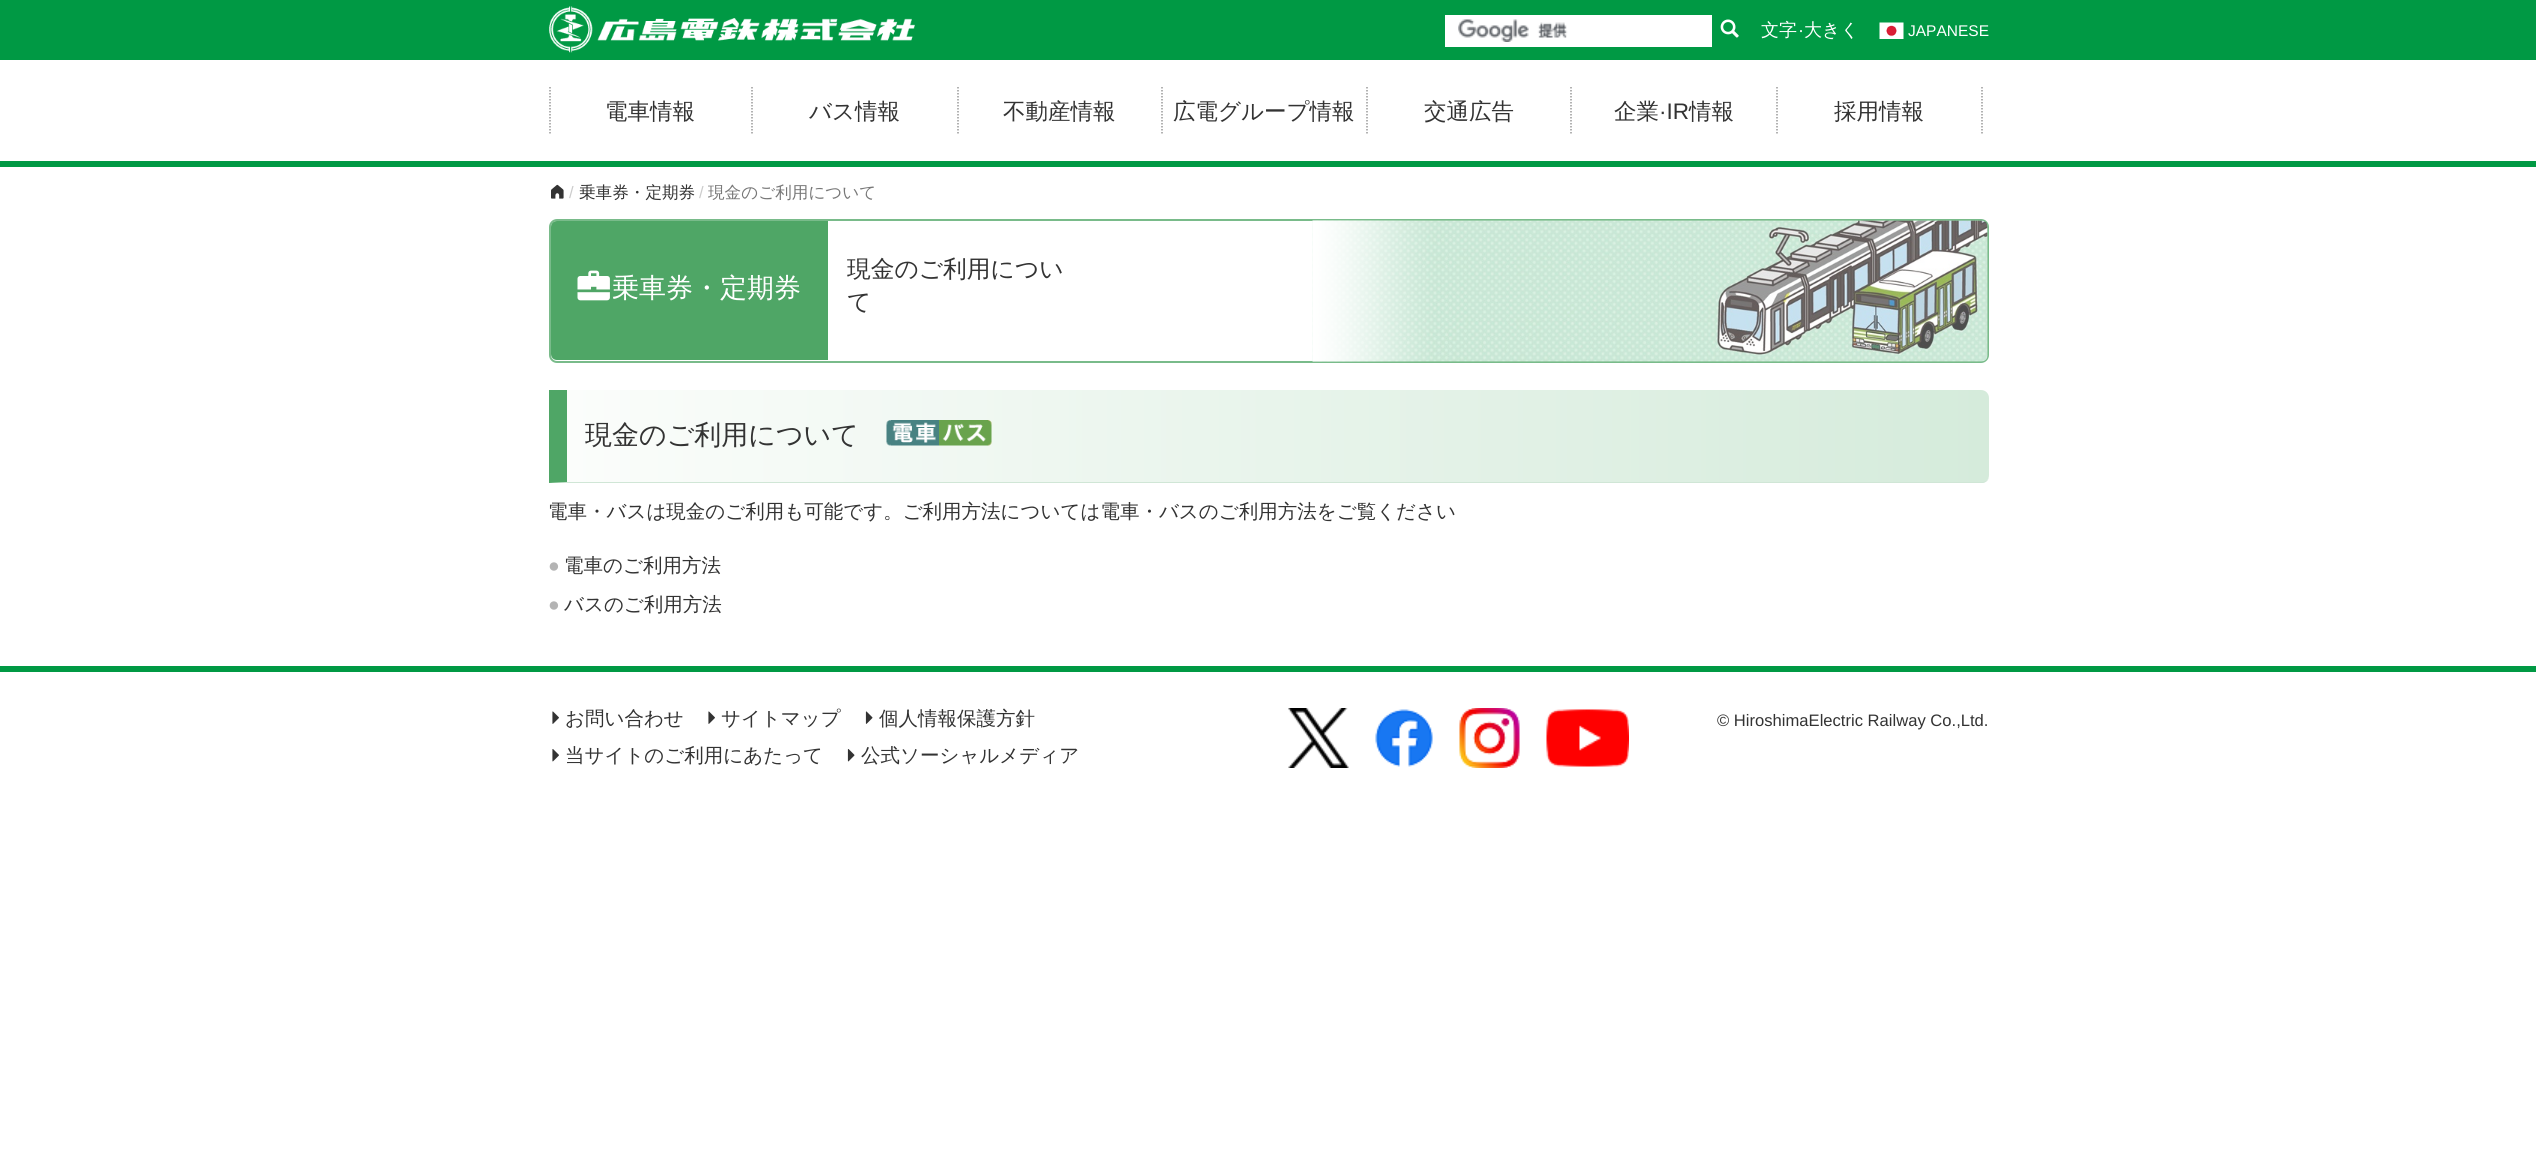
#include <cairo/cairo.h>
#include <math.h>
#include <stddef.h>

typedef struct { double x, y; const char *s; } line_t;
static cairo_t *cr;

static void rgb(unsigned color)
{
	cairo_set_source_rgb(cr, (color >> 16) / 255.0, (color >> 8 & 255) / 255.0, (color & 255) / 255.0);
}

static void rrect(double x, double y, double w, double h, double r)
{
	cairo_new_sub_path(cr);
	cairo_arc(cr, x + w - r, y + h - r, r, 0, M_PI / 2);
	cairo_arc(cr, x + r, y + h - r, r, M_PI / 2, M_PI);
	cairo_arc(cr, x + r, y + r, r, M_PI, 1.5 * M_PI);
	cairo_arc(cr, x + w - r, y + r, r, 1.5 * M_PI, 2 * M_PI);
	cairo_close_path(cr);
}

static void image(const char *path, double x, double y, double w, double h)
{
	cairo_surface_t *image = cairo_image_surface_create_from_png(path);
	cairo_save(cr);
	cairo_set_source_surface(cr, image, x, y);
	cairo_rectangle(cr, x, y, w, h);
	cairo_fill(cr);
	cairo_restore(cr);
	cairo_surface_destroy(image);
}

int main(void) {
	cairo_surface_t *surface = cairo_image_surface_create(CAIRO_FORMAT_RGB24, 2536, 1156);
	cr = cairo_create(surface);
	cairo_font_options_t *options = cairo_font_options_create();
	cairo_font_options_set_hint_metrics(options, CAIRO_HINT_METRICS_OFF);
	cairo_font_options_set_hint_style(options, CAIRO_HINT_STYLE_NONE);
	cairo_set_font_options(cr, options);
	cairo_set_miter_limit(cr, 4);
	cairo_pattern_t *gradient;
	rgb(0xffffff);
	cairo_paint(cr);
	rgb(0x009944);
	cairo_rectangle(cr, 0, 0, 2536, 60);
	cairo_fill(cr);
	image("img/1.png", 549, 6, 366, 47);
	rgb(0xffffff);
	cairo_rectangle(cr, 1445, 15, 267, 32);
	cairo_fill(cr);
	image("img/2.png", 1458, 19, 110, 23);
	image("img/3.png", 1720, 19, 19, 19);
	image("img/4.png", 1879, 22, 25, 17);
	rgb(0x009944);
	cairo_rectangle(cr, 0, 161, 2536, 6);
	cairo_fill(cr);
	cairo_new_path(cr);
	cairo_move_to(cr, 752, 87);
	cairo_line_to(cr, 752, 133.5);
	rgb(0x999999);
	cairo_set_line_width(cr, 1.5);
	cairo_set_dash(cr, (double[]){1.5, 1.5}, 2, 0);
	cairo_stroke(cr);
	cairo_new_path(cr);
	cairo_move_to(cr, 550, 87);
	cairo_line_to(cr, 550, 133.5);
	cairo_stroke(cr);
	cairo_new_path(cr);
	cairo_move_to(cr, 958, 87);
	cairo_line_to(cr, 958, 133.5);
	cairo_stroke(cr);
	cairo_new_path(cr);
	cairo_move_to(cr, 1162, 87);
	cairo_line_to(cr, 1162, 133.5);
	cairo_stroke(cr);
	cairo_new_path(cr);
	cairo_move_to(cr, 1367, 87);
	cairo_line_to(cr, 1367, 133.5);
	cairo_stroke(cr);
	cairo_new_path(cr);
	cairo_move_to(cr, 1571, 87);
	cairo_line_to(cr, 1571, 133.5);
	cairo_stroke(cr);
	cairo_new_path(cr);
	cairo_move_to(cr, 1777, 87);
	cairo_line_to(cr, 1777, 133.5);
	cairo_stroke(cr);
	cairo_new_path(cr);
	cairo_move_to(cr, 1982, 87);
	cairo_line_to(cr, 1982, 133.5);
	cairo_stroke(cr);
	image("img/5.png", 551, 184, 13, 15);
	rrect(550, 220, 1438, 142, 7);
	rgb(0x79bb8a);
	cairo_set_line_width(cr, 2);
	cairo_set_dash(cr, NULL, 0, 0);
	cairo_stroke(cr);
	rgb(0x4fa666);
	cairo_new_path(cr);
	cairo_move_to(cr, 557, 221);
	cairo_line_to(cr, 828, 221);
	cairo_line_to(cr, 828, 360);
	cairo_line_to(cr, 557, 360);
	cairo_curve_to(cr, 553.5, 360, 551, 357.5, 551, 354);
	cairo_line_to(cr, 551, 227);
	cairo_curve_to(cr, 551, 223.5, 553.5, 221, 557, 221);
	cairo_close_path(cr);
	cairo_fill(cr);
	image("img/6.png", 577, 270, 33, 31);
	image("img/7.png", 1312, 220, 676, 142);
	image("img/8.png", 1312, 220, 676, 142);
	gradient = cairo_pattern_create_linear(567, 436, 1989, 436);
	cairo_pattern_add_color_stop_rgba(gradient, 0, 0.984, 0.992, 0.984, 1);
	cairo_pattern_add_color_stop_rgba(gradient, 1, 0.835, 0.922, 0.859, 1);
	cairo_set_source(cr, gradient);
	cairo_pattern_destroy(gradient);
	cairo_new_path(cr);
	cairo_move_to(cr, 567, 390);
	cairo_line_to(cr, 1981, 390);
	cairo_curve_to(cr, 1985.5, 390, 1989, 393.5, 1989, 398);
	cairo_line_to(cr, 1989, 475);
	cairo_curve_to(cr, 1989, 479.5, 1985.5, 483, 1981, 483);
	cairo_line_to(cr, 567, 483);
	cairo_close_path(cr);
	cairo_fill(cr);
	rgb(0xd0e6d6);
	cairo_new_path(cr);
	cairo_move_to(cr, 1982, 483);
	cairo_curve_to(cr, 1986, 483, 1989, 480, 1989, 476);
	cairo_curve_to(cr, 1989, 479, 1986, 482, 1982, 482);
	cairo_line_to(cr, 567, 482);
	cairo_line_to(cr, 549, 483);
	cairo_close_path(cr);
	cairo_fill(cr);
	rgb(0x4fa666);
	cairo_new_path(cr);
	cairo_move_to(cr, 549, 390);
	cairo_line_to(cr, 567, 390);
	cairo_line_to(cr, 567, 482);
	cairo_line_to(cr, 549, 483);
	cairo_close_path(cr);
	cairo_fill(cr);
	image("img/9.png", 886, 420, 106, 26);
	rgb(0x009944);
	cairo_rectangle(cr, 0, 666, 2536, 6);
	cairo_fill(cr);
	image("img/10.png", 552, 711, 7, 13);
	image("img/10.png", 708, 711, 7, 13);
	image("img/11.png", 865, 711, 8, 13);
	image("img/12.png", 552, 749, 7, 13);
	image("img/13.png", 847, 749, 8, 13);
	image("img/14.png", 1288, 708, 61, 60);
	image("img/15.png", 1375, 709, 58, 58);
	image("img/16.png", 1459, 708, 61, 60);
	image("img/17.png", 1546, 709, 83, 58);
	cairo_select_font_face(cr, "WenQuanYi Zen Hei Medium", CAIRO_FONT_SLANT_NORMAL, CAIRO_FONT_WEIGHT_NORMAL);
	cairo_set_font_size(cr, 18);
	rgb(0xffffff);
	cairo_move_to(cr, 1761, 36);
	cairo_show_text(cr, "文字");
	cairo_select_font_face(cr, "Liberation Sans", CAIRO_FONT_SLANT_NORMAL, CAIRO_FONT_WEIGHT_NORMAL);
	cairo_move_to(cr, 1798, 36);
	cairo_show_text(cr, "·");
	cairo_select_font_face(cr, "WenQuanYi Zen Hei Medium", CAIRO_FONT_SLANT_NORMAL, CAIRO_FONT_WEIGHT_NORMAL);
	cairo_move_to(cr, 1804, 36);
	cairo_show_text(cr, "大きく");
	cairo_select_font_face(cr, "Liberation Sans", CAIRO_FONT_SLANT_NORMAL, CAIRO_FONT_WEIGHT_NORMAL);
	cairo_set_font_size(cr, 15.5);
	cairo_move_to(cr, 1908, 36);
	cairo_show_text(cr, "JAPANESE");
	cairo_select_font_face(cr, "WenQuanYi Zen Hei Medium", CAIRO_FONT_SLANT_NORMAL, CAIRO_FONT_WEIGHT_NORMAL);
	cairo_set_font_size(cr, 22.5);
	rgb(0x333333);
	{
		static const line_t items[] = {
			{605, 119, "電車情報"},
			{809, 119, "バス情報"},
			{1003, 119, "不動産情報"},
			{1173, 119, "広電グループ情報"},
			{1424, 119, "交通広告"},
			{1614, 119, "企業"},
		};
		for (size_t i = 0; i < sizeof items / sizeof *items; i++) {
			cairo_move_to(cr, items[i].x, items[i].y);
			cairo_show_text(cr, items[i].s);
		}
	}
	cairo_select_font_face(cr, "Liberation Sans", CAIRO_FONT_SLANT_NORMAL, CAIRO_FONT_WEIGHT_NORMAL);
	cairo_move_to(cr, 1659, 119);
	cairo_show_text(cr, "·IR");
	cairo_select_font_face(cr, "WenQuanYi Zen Hei Medium", CAIRO_FONT_SLANT_NORMAL, CAIRO_FONT_WEIGHT_NORMAL);
	cairo_move_to(cr, 1689, 119);
	cairo_show_text(cr, "情報");
	cairo_move_to(cr, 1834, 119);
	cairo_show_text(cr, "採用情報");
	cairo_select_font_face(cr, "Liberation Sans", CAIRO_FONT_SLANT_NORMAL, CAIRO_FONT_WEIGHT_NORMAL);
	cairo_set_font_size(cr, 16.6);
	rgb(0xcccccc);
	cairo_move_to(cr, 569, 198);
	cairo_show_text(cr, "/");
	cairo_select_font_face(cr, "WenQuanYi Zen Hei Medium", CAIRO_FONT_SLANT_NORMAL, CAIRO_FONT_WEIGHT_NORMAL);
	rgb(0x333333);
	cairo_move_to(cr, 579, 198);
	cairo_show_text(cr, "乗車券・定期券");
	cairo_select_font_face(cr, "Liberation Sans", CAIRO_FONT_SLANT_NORMAL, CAIRO_FONT_WEIGHT_NORMAL);
	rgb(0xcccccc);
	cairo_move_to(cr, 699, 198);
	cairo_show_text(cr, "/");
	cairo_select_font_face(cr, "WenQuanYi Zen Hei Medium", CAIRO_FONT_SLANT_NORMAL, CAIRO_FONT_WEIGHT_NORMAL);
	rgb(0x777777);
	cairo_move_to(cr, 708, 198);
	cairo_show_text(cr, "現金のご利用について");
	cairo_set_font_size(cr, 27);
	rgb(0xffffff);
	cairo_move_to(cr, 612, 297);
	cairo_show_text(cr, "乗車券・定期券");
	cairo_set_font_size(cr, 23.75);
	rgb(0x333333);
	cairo_move_to(cr, 847, 277);
	cairo_show_text(cr, "現金のご利用につい");
	cairo_move_to(cr, 847, 310);
	cairo_show_text(cr, "て");
	cairo_set_font_size(cr, 27);
	cairo_move_to(cr, 585, 444);
	cairo_show_text(cr, "現金のご利用について");
	cairo_set_font_size(cr, 19.5);
	cairo_move_to(cr, 548, 518);
	cairo_show_text(cr, "電車・バスは現金のご利用も可能です。ご利用方法については電車・バスのご利用方法をご覧ください");
	cairo_select_font_face(cr, "Liberation Sans", CAIRO_FONT_SLANT_NORMAL, CAIRO_FONT_WEIGHT_NORMAL);
	rgb(0xb4b4b4);
	cairo_move_to(cr, 548, 572);
	cairo_show_text(cr, "●");
	cairo_select_font_face(cr, "WenQuanYi Zen Hei Medium", CAIRO_FONT_SLANT_NORMAL, CAIRO_FONT_WEIGHT_NORMAL);
	rgb(0x333333);
	cairo_move_to(cr, 564, 572);
	cairo_show_text(cr, "電車のご利用方法");
	cairo_select_font_face(cr, "Liberation Sans", CAIRO_FONT_SLANT_NORMAL, CAIRO_FONT_WEIGHT_NORMAL);
	rgb(0xb4b4b4);
	cairo_move_to(cr, 548, 611);
	cairo_show_text(cr, "●");
	cairo_select_font_face(cr, "WenQuanYi Zen Hei Medium", CAIRO_FONT_SLANT_NORMAL, CAIRO_FONT_WEIGHT_NORMAL);
	rgb(0x333333);
	{
		static const line_t items[] = {
			{564, 611, "バスのご利用方法"},
			{565, 725, "お問い合わせ"},
			{721, 725, "サイトマップ"},
			{879, 725, "個人情報保護方針"},
			{565, 762, "当サイトのご利用にあたって"},
			{861, 762, "公式ソーシャルメディア"},
		};
		for (size_t i = 0; i < sizeof items / sizeof *items; i++) {
			cairo_move_to(cr, items[i].x, items[i].y);
			cairo_show_text(cr, items[i].s);
		}
	}
	cairo_select_font_face(cr, "Liberation Sans", CAIRO_FONT_SLANT_NORMAL, CAIRO_FONT_WEIGHT_NORMAL);
	cairo_set_font_size(cr, 16.6);
	cairo_move_to(cr, 1717, 726);
	cairo_show_text(cr, "© HiroshimaElectric Railway Co.,Ltd.");
	cairo_surface_write_to_png(surface, "page.png");
	cairo_font_options_destroy(options);
	cairo_destroy(cr);
	cairo_surface_destroy(surface);
	return 0;
}
